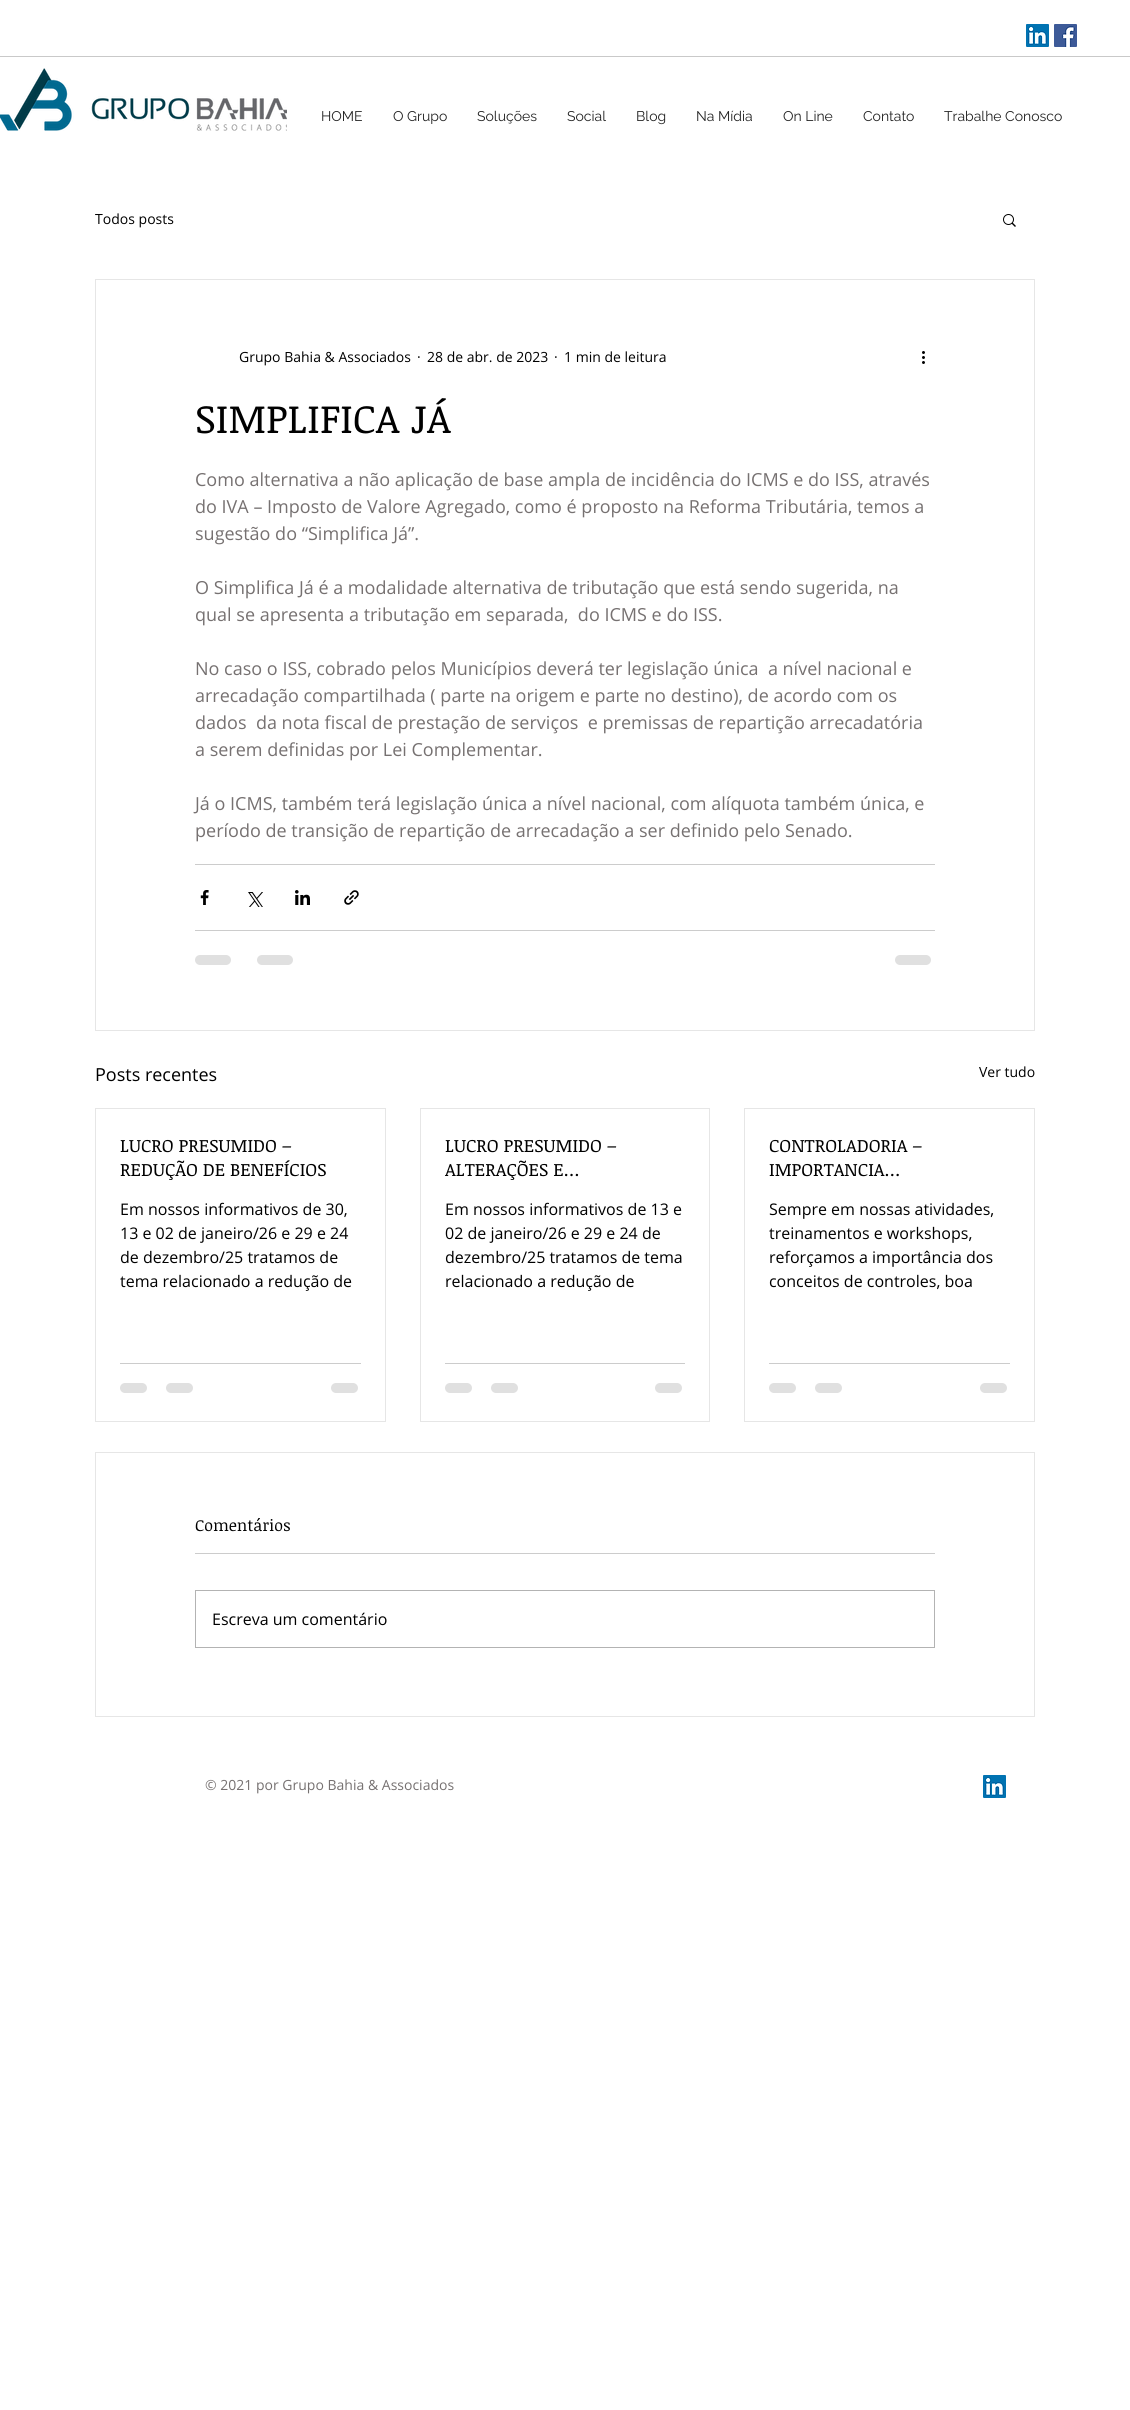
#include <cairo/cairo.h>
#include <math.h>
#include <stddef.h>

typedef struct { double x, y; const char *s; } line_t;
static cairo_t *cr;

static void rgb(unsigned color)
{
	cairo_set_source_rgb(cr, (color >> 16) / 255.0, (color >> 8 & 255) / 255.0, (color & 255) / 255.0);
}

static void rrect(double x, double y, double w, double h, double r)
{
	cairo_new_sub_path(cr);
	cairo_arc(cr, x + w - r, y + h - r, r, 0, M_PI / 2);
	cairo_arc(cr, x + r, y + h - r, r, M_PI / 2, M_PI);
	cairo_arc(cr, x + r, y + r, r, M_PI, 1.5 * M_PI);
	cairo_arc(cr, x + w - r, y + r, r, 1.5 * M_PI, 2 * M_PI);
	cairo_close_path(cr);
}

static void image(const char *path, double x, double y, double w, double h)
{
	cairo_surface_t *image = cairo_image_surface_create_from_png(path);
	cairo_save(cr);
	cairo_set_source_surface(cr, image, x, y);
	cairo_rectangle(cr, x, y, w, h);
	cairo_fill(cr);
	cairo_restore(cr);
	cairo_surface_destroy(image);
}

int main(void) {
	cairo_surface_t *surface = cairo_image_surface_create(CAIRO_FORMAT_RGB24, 1130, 2410);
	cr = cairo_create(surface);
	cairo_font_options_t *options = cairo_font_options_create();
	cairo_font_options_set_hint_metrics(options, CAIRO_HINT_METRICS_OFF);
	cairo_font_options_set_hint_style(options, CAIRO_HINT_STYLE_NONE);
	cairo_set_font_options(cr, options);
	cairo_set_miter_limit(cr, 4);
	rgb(0xffffff);
	cairo_paint(cr);
	image("img/1.png", 1026, 24, 23, 23);
	image("img/2.png", 1054, 24, 23, 23);
	rgb(0xc9c9c9);
	cairo_rectangle(cr, 0, 56, 1130, 1);
	cairo_fill(cr);
	image("img/3.png", 0, 68, 287, 63);
	image("img/4.png", 1003, 214, 13, 13);
	cairo_rectangle(cr, 95.5, 279.5, 939, 751);
	rgb(0xe6e6e6);
	cairo_set_line_width(cr, 1);
	cairo_stroke(cr);
	image("img/5.png", 922, 351, 3, 13);
	rgb(0xcccccc);
	cairo_rectangle(cr, 195, 864, 740, 1);
	cairo_fill(cr);
	image("img/6.png", 200, 890, 9, 15);
	image("img/7.png", 248, 892, 15, 15);
	image("img/8.png", 295, 890, 15, 15);
	image("img/9.png", 344, 890, 15, 15);
	cairo_rectangle(cr, 195, 930, 740, 1);
	cairo_fill(cr);
	rgb(0xe0e0e0);
	rrect(195, 955, 36, 10, 5);
	cairo_fill(cr);
	rrect(257, 955, 36, 10, 5);
	cairo_fill(cr);
	rrect(895, 955, 36, 10, 5);
	cairo_fill(cr);
	cairo_rectangle(cr, 95.5, 1108.5, 290, 313);
	rgb(0xe6e6e6);
	cairo_stroke(cr);
	rgb(0xcccccc);
	cairo_rectangle(cr, 120, 1363, 241, 1);
	cairo_fill(cr);
	rgb(0xe0e0e0);
	rrect(120, 1383, 27, 10, 5);
	cairo_fill(cr);
	rrect(166, 1383, 27, 10, 5);
	cairo_fill(cr);
	rrect(331, 1383, 27, 10, 5);
	cairo_fill(cr);
	cairo_rectangle(cr, 420.5, 1108.5, 289, 313);
	rgb(0xe6e6e6);
	cairo_stroke(cr);
	rgb(0xcccccc);
	cairo_rectangle(cr, 445, 1363, 240, 1);
	cairo_fill(cr);
	rgb(0xe0e0e0);
	rrect(445, 1383, 27, 10, 5);
	cairo_fill(cr);
	rrect(491, 1383, 27, 10, 5);
	cairo_fill(cr);
	rrect(655, 1383, 27, 10, 5);
	cairo_fill(cr);
	cairo_rectangle(cr, 744.5, 1108.5, 290, 313);
	rgb(0xe6e6e6);
	cairo_stroke(cr);
	rgb(0xcccccc);
	cairo_rectangle(cr, 769, 1363, 241, 1);
	cairo_fill(cr);
	rgb(0xe0e0e0);
	rrect(769, 1383, 27, 10, 5);
	cairo_fill(cr);
	rrect(815, 1383, 27, 10, 5);
	cairo_fill(cr);
	rrect(980, 1383, 27, 10, 5);
	cairo_fill(cr);
	cairo_rectangle(cr, 95.5, 1452.5, 939, 264);
	rgb(0xe6e6e6);
	cairo_stroke(cr);
	rgb(0xcccccc);
	cairo_rectangle(cr, 195, 1553, 740, 1);
	cairo_fill(cr);
	cairo_rectangle(cr, 195.5, 1590.5, 739, 57);
	rgb(0xb3b3b3);
	cairo_stroke(cr);
	image("img/1.png", 983, 1775, 23, 23);
	cairo_select_font_face(cr, "Raleway", CAIRO_FONT_SLANT_NORMAL, CAIRO_FONT_WEIGHT_NORMAL);
	cairo_set_font_size(cr, 14);
	rgb(0x232323);
	{
		static const line_t items[] = {
			{321, 121, "HOME"},
			{393, 121, "O Grupo"},
			{477, 121, "Soluções"},
			{567, 121, "Social"},
			{636, 121, "Blog"},
			{696, 121, "Na Mídia"},
			{783, 121, "On Line"},
			{863, 121, "Contato"},
			{944, 121, "Trabalhe Conosco"},
		};
		for (size_t i = 0; i < sizeof items / sizeof *items; i++) {
			cairo_move_to(cr, items[i].x, items[i].y);
			cairo_show_text(cr, items[i].s);
		}
	}
	cairo_select_font_face(cr, "Open Sans", CAIRO_FONT_SLANT_NORMAL, CAIRO_FONT_WEIGHT_NORMAL);
	rgb(0x000000);
	{
		static const line_t items[] = {
			{95, 224, "Todos posts"},
			{239, 362, "Grupo Bahia & Associados"},
			{417, 362, "·"},
			{427, 362, "28 de abr. de 2023"},
			{554, 362, "·"},
			{564, 362, "1 min de leitura"},
		};
		for (size_t i = 0; i < sizeof items / sizeof *items; i++) {
			cairo_move_to(cr, items[i].x, items[i].y);
			cairo_show_text(cr, items[i].s);
		}
	}
	cairo_select_font_face(cr, "Noticia Text", CAIRO_FONT_SLANT_NORMAL, CAIRO_FONT_WEIGHT_NORMAL);
	cairo_set_font_size(cr, 40);
	cairo_move_to(cr, 195, 433);
	cairo_show_text(cr, "SIMPLIFICA JÁ");
	cairo_select_font_face(cr, "Open Sans", CAIRO_FONT_SLANT_NORMAL, CAIRO_FONT_WEIGHT_NORMAL);
	cairo_set_font_size(cr, 18);
	rgb(0x767171);
	{
		static const line_t items[] = {
			{195, 486, "Como alternativa a não aplicação de base ampla de incidência do ICMS e do ISS, através"},
			{195, 513, "do IVA – Imposto de Valore Agregado, como é proposto na Reforma Tributária, temos a"},
			{195, 540, "sugestão do “Simplifica Já”."},
			{195, 594, "O Simplifica Já é a modalidade alternativa de tributação que está sendo sugerida, na"},
			{195, 621, "qual se apresenta a tributação em separada,  do ICMS e do ISS."},
			{195, 675, "No caso o ISS, cobrado pelos Municípios deverá ter legislação única  a nível nacional e"},
			{195, 702, "arrecadação compartilhada ( parte na origem e parte no destino), de acordo com os"},
			{195, 729, "dados  da nota fiscal de prestação de serviços  e premissas de repartição arrecadatória"},
			{195, 756, "a serem definidas por Lei Complementar."},
			{195, 810, "Já o ICMS, também terá legislação única a nível nacional, com alíquota também única, e"},
			{195, 837, "período de transição de repartição de arrecadação a ser definido pelo Senado."},
		};
		for (size_t i = 0; i < sizeof items / sizeof *items; i++) {
			cairo_move_to(cr, items[i].x, items[i].y);
			cairo_show_text(cr, items[i].s);
		}
	}
	rgb(0x000000);
	cairo_move_to(cr, 95, 1081);
	cairo_show_text(cr, "Posts recentes");
	cairo_set_font_size(cr, 14);
	cairo_move_to(cr, 979, 1077);
	cairo_show_text(cr, "Ver tudo");
	cairo_select_font_face(cr, "Noticia Text", CAIRO_FONT_SLANT_NORMAL, CAIRO_FONT_WEIGHT_NORMAL);
	cairo_set_font_size(cr, 18);
	cairo_move_to(cr, 120, 1152);
	cairo_show_text(cr, "LUCRO PRESUMIDO –");
	cairo_move_to(cr, 120, 1176);
	cairo_show_text(cr, "REDUÇÃO DE BENEFÍCIOS");
	cairo_select_font_face(cr, "Open Sans", CAIRO_FONT_SLANT_NORMAL, CAIRO_FONT_WEIGHT_NORMAL);
	cairo_set_font_size(cr, 16);
	{
		static const line_t items[] = {
			{120, 1215, "Em nossos informativos de 30,"},
			{120, 1239, "13 e 02 de janeiro/26 e 29 e 24"},
			{120, 1263, "de dezembro/25 tratamos de"},
			{120, 1287, "tema relacionado a redução de"},
		};
		for (size_t i = 0; i < sizeof items / sizeof *items; i++) {
			cairo_move_to(cr, items[i].x, items[i].y);
			cairo_show_text(cr, items[i].s);
		}
	}
	cairo_select_font_face(cr, "Noticia Text", CAIRO_FONT_SLANT_NORMAL, CAIRO_FONT_WEIGHT_NORMAL);
	cairo_set_font_size(cr, 18);
	cairo_move_to(cr, 445, 1152);
	cairo_show_text(cr, "LUCRO PRESUMIDO –");
	cairo_move_to(cr, 445, 1176);
	cairo_show_text(cr, "ALTERAÇÕES E…");
	cairo_select_font_face(cr, "Open Sans", CAIRO_FONT_SLANT_NORMAL, CAIRO_FONT_WEIGHT_NORMAL);
	cairo_set_font_size(cr, 16);
	{
		static const line_t items[] = {
			{445, 1215, "Em nossos informativos de 13 e"},
			{445, 1239, "02 de janeiro/26 e 29 e 24 de"},
			{445, 1263, "dezembro/25 tratamos de tema"},
			{445, 1287, "relacionado a redução de"},
		};
		for (size_t i = 0; i < sizeof items / sizeof *items; i++) {
			cairo_move_to(cr, items[i].x, items[i].y);
			cairo_show_text(cr, items[i].s);
		}
	}
	cairo_select_font_face(cr, "Noticia Text", CAIRO_FONT_SLANT_NORMAL, CAIRO_FONT_WEIGHT_NORMAL);
	cairo_set_font_size(cr, 18);
	cairo_move_to(cr, 769, 1152);
	cairo_show_text(cr, "CONTROLADORIA –");
	cairo_move_to(cr, 769, 1176);
	cairo_show_text(cr, "IMPORTANCIA…");
	cairo_select_font_face(cr, "Open Sans", CAIRO_FONT_SLANT_NORMAL, CAIRO_FONT_WEIGHT_NORMAL);
	cairo_set_font_size(cr, 16);
	{
		static const line_t items[] = {
			{769, 1215, "Sempre em nossas atividades,"},
			{769, 1239, "treinamentos e workshops,"},
			{769, 1263, "reforçamos a importância dos"},
			{769, 1287, "conceitos de controles, boa"},
		};
		for (size_t i = 0; i < sizeof items / sizeof *items; i++) {
			cairo_move_to(cr, items[i].x, items[i].y);
			cairo_show_text(cr, items[i].s);
		}
	}
	cairo_select_font_face(cr, "Noticia Text", CAIRO_FONT_SLANT_NORMAL, CAIRO_FONT_WEIGHT_NORMAL);
	cairo_move_to(cr, 195, 1531);
	cairo_show_text(cr, "Comentários");
	cairo_select_font_face(cr, "Open Sans", CAIRO_FONT_SLANT_NORMAL, CAIRO_FONT_WEIGHT_NORMAL);
	cairo_move_to(cr, 212, 1625);
	cairo_show_text(cr, "Escreva um comentário");
	cairo_set_font_size(cr, 14);
	rgb(0x767171);
	cairo_move_to(cr, 205, 1790);
	cairo_show_text(cr, "© 2021 por Grupo Bahia & Associados");
	cairo_surface_write_to_png(surface, "page.png");
	cairo_font_options_destroy(options);
	cairo_destroy(cr);
	cairo_surface_destroy(surface);
	return 0;
}
